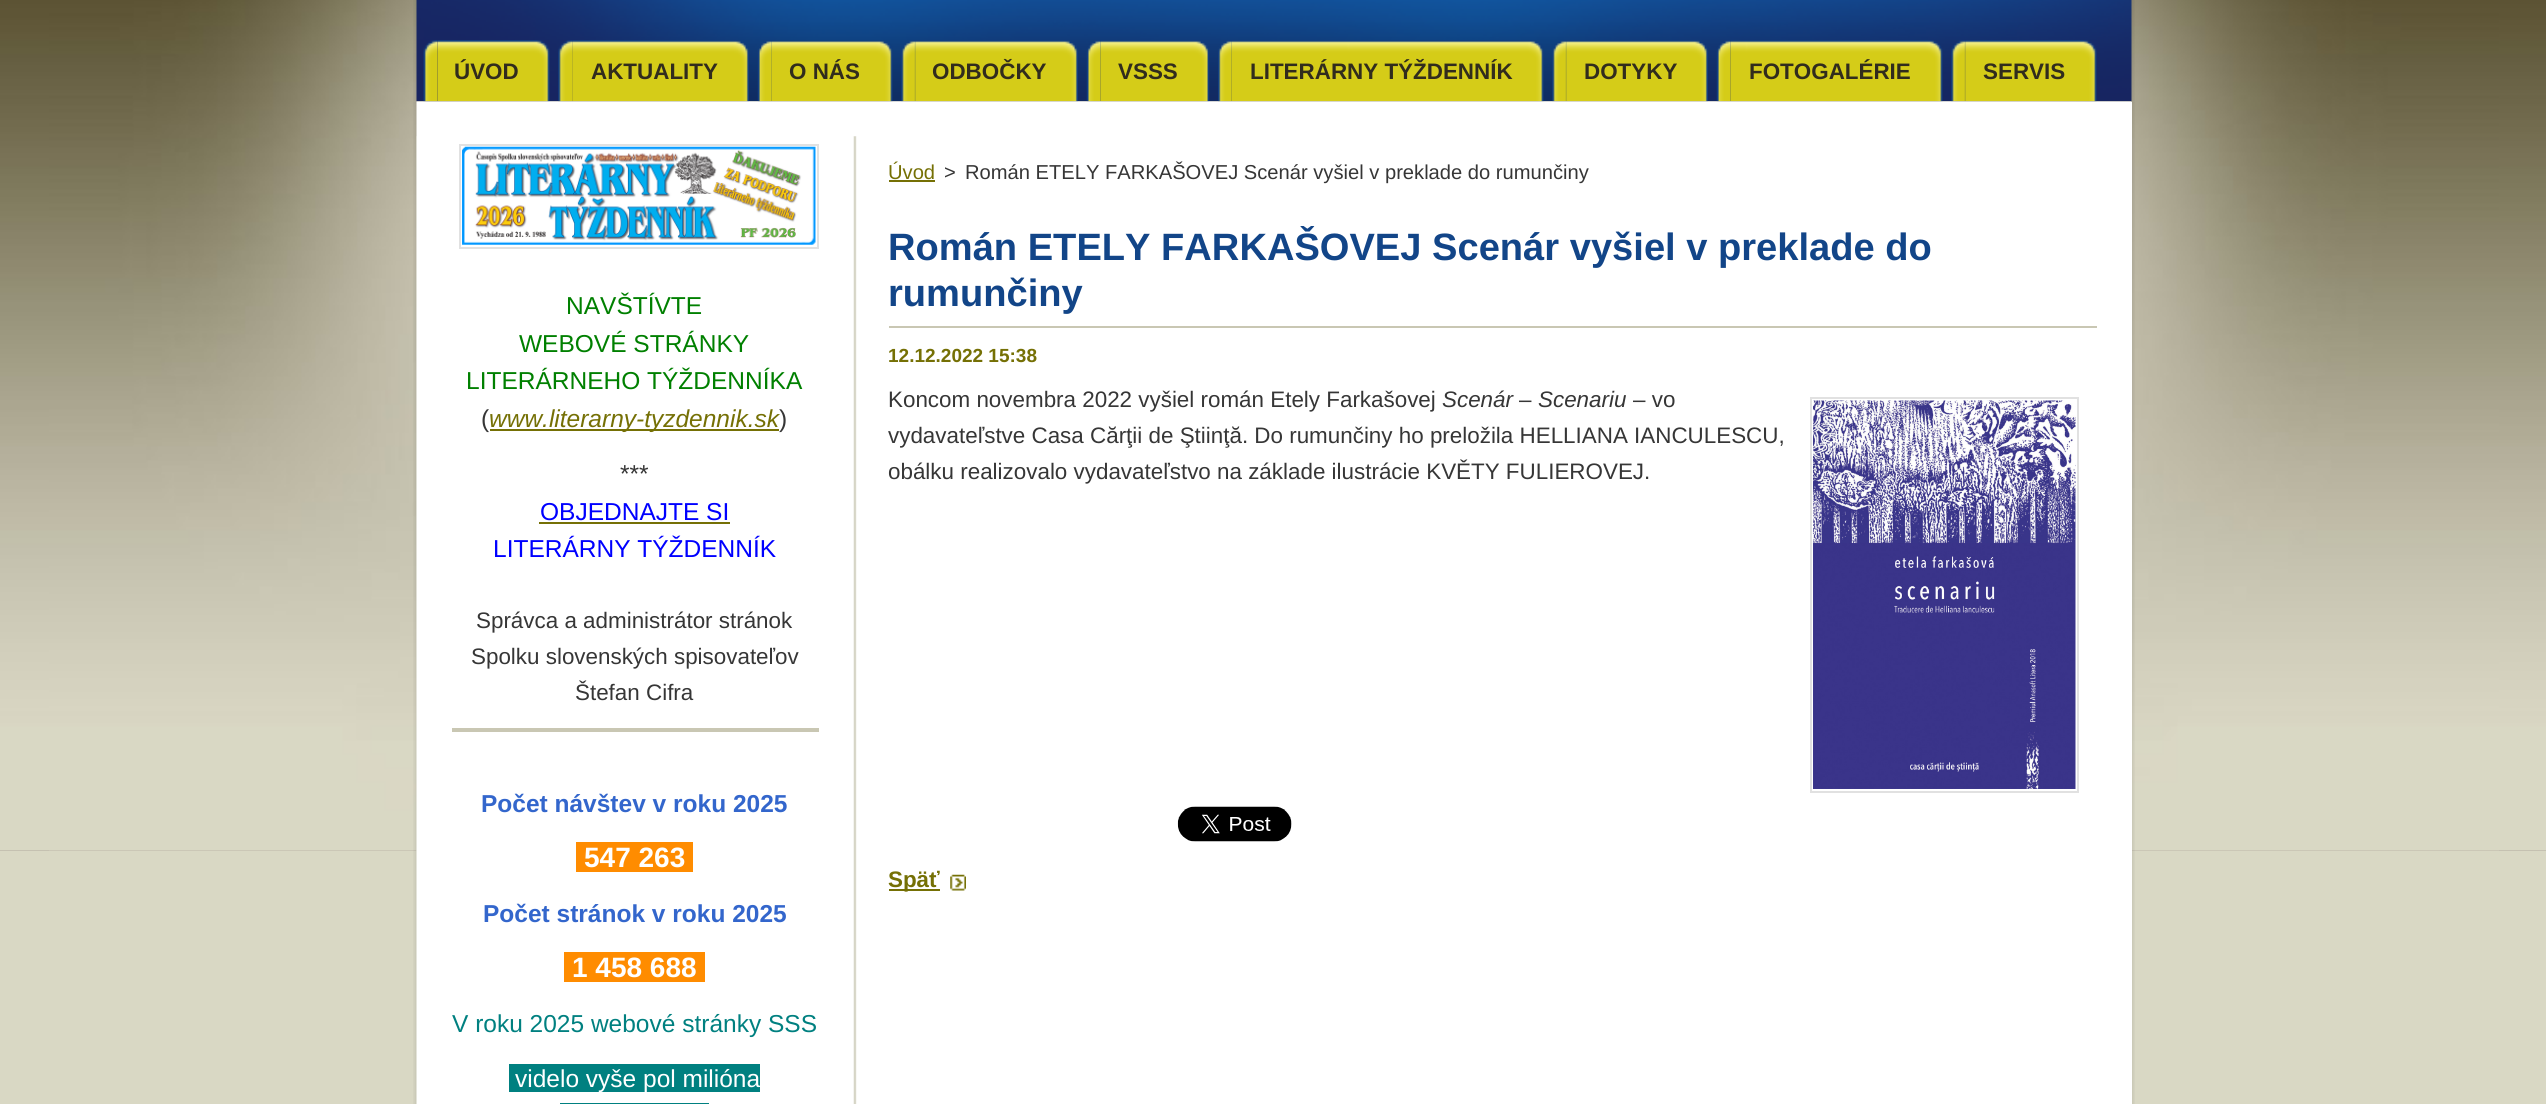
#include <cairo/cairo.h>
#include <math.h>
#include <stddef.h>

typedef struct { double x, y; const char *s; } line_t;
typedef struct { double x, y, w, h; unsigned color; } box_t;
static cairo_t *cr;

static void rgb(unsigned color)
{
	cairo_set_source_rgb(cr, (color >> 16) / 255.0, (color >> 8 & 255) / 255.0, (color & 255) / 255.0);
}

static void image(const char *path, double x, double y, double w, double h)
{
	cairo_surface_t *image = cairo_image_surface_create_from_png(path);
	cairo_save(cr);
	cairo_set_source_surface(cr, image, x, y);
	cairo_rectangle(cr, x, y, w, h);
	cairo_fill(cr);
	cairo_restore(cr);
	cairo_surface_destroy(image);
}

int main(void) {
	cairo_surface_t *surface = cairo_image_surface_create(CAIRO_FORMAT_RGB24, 2546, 1104);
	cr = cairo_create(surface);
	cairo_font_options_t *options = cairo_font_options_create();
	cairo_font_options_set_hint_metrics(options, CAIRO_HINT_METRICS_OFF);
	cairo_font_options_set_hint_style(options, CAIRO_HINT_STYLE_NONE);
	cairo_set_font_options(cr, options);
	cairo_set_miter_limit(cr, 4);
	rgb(0xffffff);
	cairo_paint(cr);
	image("img/1.png", 0, 851, 2546, 253);
	rgb(0xbdbaab);
	cairo_rectangle(cr, 0, 850, 2546, 1);
	cairo_fill(cr);
	image("img/2.png", 0, 0, 2546, 851);
	image("img/3.png", 49, 0, 2450, 851);
	image("img/4.png", 413, 0, 1722, 102);
	image("img/23.png", 413, 101, 1722, 1003);
	image("img/5.png", 423, 40, 15, 62);
	image("img/6.png", 437, 40, 113, 62);
	image("img/7.png", 558, 40, 15, 62);
	image("img/8.png", 572, 40, 177, 62);
	image("img/9.png", 757, 41, 15, 61);
	image("img/10.png", 771, 41, 122, 61);
	image("img/11.png", 901, 41, 15, 61);
	image("img/12.png", 915, 40, 163, 62);
	image("img/13.png", 1086, 40, 15, 62);
	image("img/14.png", 1100, 40, 110, 62);
	image("img/15.png", 1218, 40, 14, 62);
	image("img/16.png", 1232, 40, 312, 62);
	image("img/17.png", 1552, 41, 15, 61);
	image("img/18.png", 1566, 40, 142, 62);
	image("img/19.png", 1716, 40, 15, 62);
	image("img/20.png", 1730, 40, 213, 62);
	image("img/21.png", 1951, 40, 15, 62);
	image("img/22.png", 1965, 40, 132, 62);
	image("img/24.png", 416, 136, 441, 968);
	cairo_rectangle(cr, 460, 145, 358, 103);
	rgb(0xe1e1e1);
	cairo_stroke(cr);
	image("img/25.png", 462, 146, 354, 99);
	{
		static const box_t items[] = {
			{490, 429, 289, 2, 0x757005},
			{539, 522, 191, 2, 0x757005},
			{452, 728, 367, 4, 0xc9c7b3},
			{576, 842, 117, 30, 0xff8c00},
			{564, 952, 141, 30, 0xff8c00},
			{509, 1064, 251, 28, 0x008080},
			{560, 1103, 149, 1, 0x008080},
			{889, 180, 46, 2, 0x757005},
			{889, 326, 1208, 2, 0xc9c7b3},
		};
		for (size_t i = 0; i < sizeof items / sizeof *items; i++) {
			rgb(items[i].color);
			cairo_rectangle(cr, items[i].x, items[i].y, items[i].w, items[i].h);
			cairo_fill(cr);
		}
	}
	cairo_rectangle(cr, 1811, 398, 267, 394);
	rgb(0xe1e1e1);
	cairo_stroke(cr);
	image("img/26.png", 1813, 400, 263, 389);
	image("img/27.png", 1177, 806, 115, 36);
	image("img/28.png", 950, 874, 16, 17);
	rgb(0x757005);
	cairo_rectangle(cr, 889, 889, 51, 2);
	cairo_fill(cr);
	rgb(0xffffff);
	cairo_rectangle(cr, 2131, 102, 1, 1002);
	cairo_fill(cr);
	cairo_select_font_face(cr, "Liberation Sans", CAIRO_FONT_SLANT_NORMAL, CAIRO_FONT_WEIGHT_BOLD);
	cairo_set_font_size(cr, 22.4);
	rgb(0x312c1d);
	{
		static const line_t items[] = {
			{454, 79, "ÚVOD"},
			{591, 79, "AKTUALITY"},
			{789, 79, "O NÁS"},
			{932, 79, "ODBOČKY"},
			{1118, 79, "VSSS"},
			{1250, 79, "LITERÁRNY TÝŽDENNÍK"},
			{1584, 79, "DOTYKY"},
			{1749, 79, "FOTOGALÉRIE"},
			{1983, 79, "SERVIS"},
		};
		for (size_t i = 0; i < sizeof items / sizeof *items; i++) {
			cairo_move_to(cr, items[i].x, items[i].y);
			cairo_show_text(cr, items[i].s);
		}
	}
	cairo_select_font_face(cr, "Liberation Sans", CAIRO_FONT_SLANT_NORMAL, CAIRO_FONT_WEIGHT_NORMAL);
	cairo_set_font_size(cr, 24.5);
	rgb(0x008000);
	{
		static const line_t items[] = {
			{566, 314, "NAVŠTÍVTE"},
			{519, 352, "WEBOVÉ STRÁNKY"},
			{466, 389, "LITERÁRNEHO TÝŽDENNÍKA"},
		};
		for (size_t i = 0; i < sizeof items / sizeof *items; i++) {
			cairo_move_to(cr, items[i].x, items[i].y);
			cairo_show_text(cr, items[i].s);
		}
	}
	rgb(0x363636);
	cairo_move_to(cr, 481, 427);
	cairo_show_text(cr, "(");
	cairo_select_font_face(cr, "Liberation Sans", CAIRO_FONT_SLANT_ITALIC, CAIRO_FONT_WEIGHT_NORMAL);
	rgb(0x757005);
	cairo_move_to(cr, 489, 427);
	cairo_show_text(cr, "www.literarny-tyzdennik.sk");
	cairo_select_font_face(cr, "Liberation Sans", CAIRO_FONT_SLANT_NORMAL, CAIRO_FONT_WEIGHT_NORMAL);
	rgb(0x363636);
	cairo_move_to(cr, 779, 427);
	cairo_show_text(cr, ")");
	cairo_move_to(cr, 620, 482);
	cairo_show_text(cr, "***");
	rgb(0x0000ff);
	cairo_move_to(cr, 540, 520);
	cairo_show_text(cr, "OBJEDNAJTE SI");
	cairo_move_to(cr, 493, 557);
	cairo_show_text(cr, "LITERÁRNY TÝŽDENNÍK");
	cairo_set_font_size(cr, 22.4);
	rgb(0x363636);
	{
		static const line_t items[] = {
			{476, 628, "Správca a administrátor stránok"},
			{471, 664, "Spolku slovenských spisovateľov"},
			{575, 700, "Štefan Cifra"},
		};
		for (size_t i = 0; i < sizeof items / sizeof *items; i++) {
			cairo_move_to(cr, items[i].x, items[i].y);
			cairo_show_text(cr, items[i].s);
		}
	}
	cairo_select_font_face(cr, "Liberation Sans", CAIRO_FONT_SLANT_NORMAL, CAIRO_FONT_WEIGHT_BOLD);
	cairo_set_font_size(cr, 24.5);
	rgb(0x3366cc);
	cairo_move_to(cr, 481, 812);
	cairo_show_text(cr, "Počet návštev v roku 2025");
	cairo_set_font_size(cr, 28);
	rgb(0xffffff);
	cairo_move_to(cr, 584, 867);
	cairo_show_text(cr, "547 263");
	cairo_set_font_size(cr, 24.5);
	rgb(0x3366cc);
	cairo_move_to(cr, 483, 922);
	cairo_show_text(cr, "Počet stránok v roku 2025");
	cairo_set_font_size(cr, 28);
	rgb(0xffffff);
	cairo_move_to(cr, 572, 977);
	cairo_show_text(cr, "1 458 688");
	cairo_select_font_face(cr, "Liberation Sans", CAIRO_FONT_SLANT_NORMAL, CAIRO_FONT_WEIGHT_NORMAL);
	cairo_set_font_size(cr, 24.5);
	rgb(0x008080);
	cairo_move_to(cr, 452, 1032);
	cairo_show_text(cr, "V roku 2025 webové stránky SSS");
	rgb(0xffffff);
	cairo_move_to(cr, 515, 1087);
	cairo_show_text(cr, "videlo vyše pol milióna");
	cairo_set_font_size(cr, 20.15);
	rgb(0x757005);
	cairo_move_to(cr, 888, 179);
	cairo_show_text(cr, "Úvod");
	rgb(0x363636);
	cairo_move_to(cr, 944, 179);
	cairo_show_text(cr, ">");
	cairo_move_to(cr, 965, 179);
	cairo_show_text(cr, "Román ETELY FARKAŠOVEJ Scenár vyšiel v preklade do rumunčiny");
	cairo_save(cr);
	cairo_rectangle(cr, 889, 226, 1208, 667);
	cairo_clip(cr);
	cairo_select_font_face(cr, "Liberation Sans", CAIRO_FONT_SLANT_NORMAL, CAIRO_FONT_WEIGHT_BOLD);
	cairo_set_font_size(cr, 38.1);
	rgb(0x124588);
	cairo_move_to(cr, 888, 260);
	cairo_show_text(cr, "Román ETELY FARKAŠOVEJ Scenár vyšiel v preklade do");
	cairo_restore(cr);
	cairo_select_font_face(cr, "Liberation Sans", CAIRO_FONT_SLANT_NORMAL, CAIRO_FONT_WEIGHT_BOLD);
	cairo_set_font_size(cr, 38.1);
	rgb(0x124588);
	cairo_move_to(cr, 888, 306);
	cairo_show_text(cr, "rumunčiny");
	cairo_set_font_size(cr, 19);
	rgb(0x757005);
	cairo_move_to(cr, 888, 362);
	cairo_show_text(cr, "12.12.2022 15:38");
	cairo_select_font_face(cr, "Liberation Sans", CAIRO_FONT_SLANT_NORMAL, CAIRO_FONT_WEIGHT_NORMAL);
	cairo_set_font_size(cr, 22.4);
	rgb(0x363636);
	cairo_move_to(cr, 888, 407);
	cairo_show_text(cr, "Koncom novembra 2022 vyšiel román Etely Farkašovej");
	cairo_select_font_face(cr, "Liberation Sans", CAIRO_FONT_SLANT_ITALIC, CAIRO_FONT_WEIGHT_NORMAL);
	cairo_move_to(cr, 1442, 407);
	cairo_show_text(cr, "Scenár");
	cairo_select_font_face(cr, "Liberation Sans", CAIRO_FONT_SLANT_NORMAL, CAIRO_FONT_WEIGHT_NORMAL);
	cairo_move_to(cr, 1519, 407);
	cairo_show_text(cr, "–");
	cairo_select_font_face(cr, "Liberation Sans", CAIRO_FONT_SLANT_ITALIC, CAIRO_FONT_WEIGHT_NORMAL);
	cairo_move_to(cr, 1538, 407);
	cairo_show_text(cr, "Scenariu");
	cairo_select_font_face(cr, "Liberation Sans", CAIRO_FONT_SLANT_NORMAL, CAIRO_FONT_WEIGHT_NORMAL);
	{
		static const line_t items[] = {
			{1633, 407, "– vo"},
			{888, 443, "vydavateľstve Casa Cărţii de Ştiinţă. Do rumunčiny ho preložila HELLIANA IANCULESCU,"},
			{888, 479, "obálku realizovalo vydavateľstvo na základe ilustrácie KVĚTY FULIEROVEJ."},
		};
		for (size_t i = 0; i < sizeof items / sizeof *items; i++) {
			cairo_move_to(cr, items[i].x, items[i].y);
			cairo_show_text(cr, items[i].s);
		}
	}
	cairo_select_font_face(cr, "Liberation Sans", CAIRO_FONT_SLANT_NORMAL, CAIRO_FONT_WEIGHT_BOLD);
	rgb(0x757005);
	cairo_move_to(cr, 888, 887);
	cairo_show_text(cr, "Späť");
	cairo_surface_write_to_png(surface, "page.png");
	cairo_font_options_destroy(options);
	cairo_destroy(cr);
	cairo_surface_destroy(surface);
	return 0;
}
